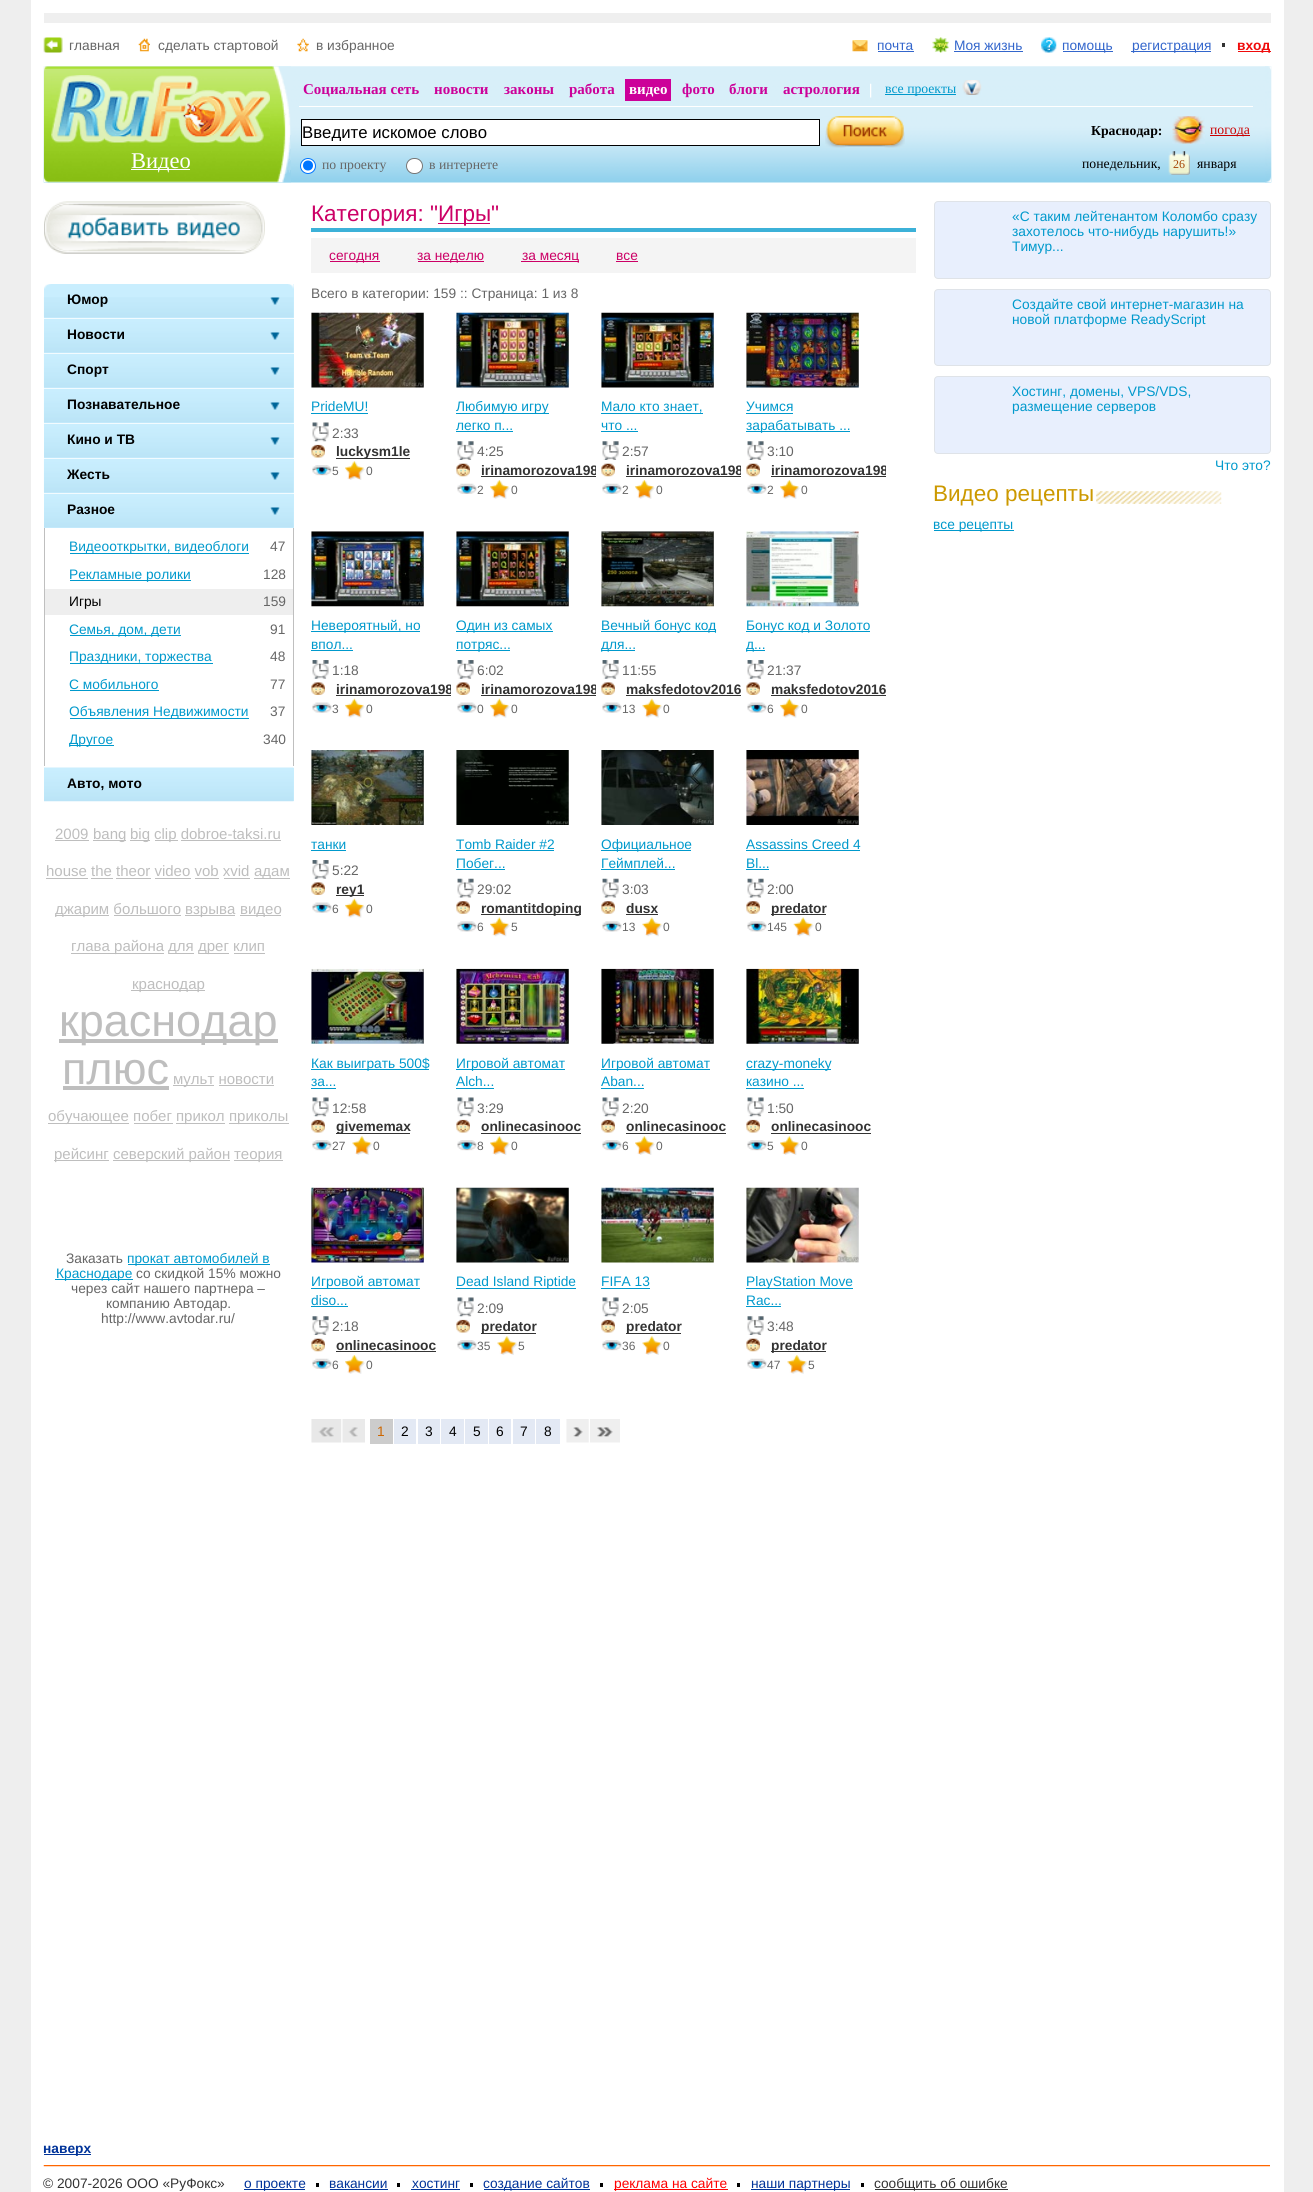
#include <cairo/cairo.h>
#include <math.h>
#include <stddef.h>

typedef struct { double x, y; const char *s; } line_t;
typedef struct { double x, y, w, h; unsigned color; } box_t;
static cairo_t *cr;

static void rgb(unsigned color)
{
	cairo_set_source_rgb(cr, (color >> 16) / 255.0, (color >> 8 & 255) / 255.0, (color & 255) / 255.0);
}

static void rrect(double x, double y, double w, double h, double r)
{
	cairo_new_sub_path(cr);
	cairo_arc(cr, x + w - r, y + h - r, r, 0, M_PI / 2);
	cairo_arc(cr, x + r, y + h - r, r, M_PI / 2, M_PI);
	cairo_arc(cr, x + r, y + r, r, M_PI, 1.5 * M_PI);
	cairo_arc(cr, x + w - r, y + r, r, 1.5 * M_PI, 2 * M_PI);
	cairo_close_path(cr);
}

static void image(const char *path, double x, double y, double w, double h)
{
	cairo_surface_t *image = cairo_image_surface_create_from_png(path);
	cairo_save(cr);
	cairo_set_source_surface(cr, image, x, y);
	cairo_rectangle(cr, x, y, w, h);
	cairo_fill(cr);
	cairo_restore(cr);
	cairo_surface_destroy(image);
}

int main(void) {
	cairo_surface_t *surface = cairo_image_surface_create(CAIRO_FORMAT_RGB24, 1313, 2192);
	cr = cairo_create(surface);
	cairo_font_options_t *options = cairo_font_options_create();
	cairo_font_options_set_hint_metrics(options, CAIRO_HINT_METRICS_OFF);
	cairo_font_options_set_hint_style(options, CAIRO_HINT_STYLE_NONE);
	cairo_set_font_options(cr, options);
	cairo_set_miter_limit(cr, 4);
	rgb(0xeeeeee);
	cairo_paint(cr);
	rgb(0xffffff);
	cairo_rectangle(cr, 31, 0, 1253, 2192);
	cairo_fill(cr);
	rgb(0xefefef);
	cairo_rectangle(cr, 44, 13, 1227, 10);
	cairo_fill(cr);
	image("img/1.png", 43, 37, 20, 16);
	image("img/2.png", 138, 38, 12, 14);
	image("img/3.png", 297, 38, 12, 14);
	image("img/4.png", 852, 40, 16, 12);
	rgb(0x3366cc);
	cairo_rectangle(cr, 878, 51, 36, 1);
	cairo_fill(cr);
	image("img/5.png", 932, 37, 17, 16);
	cairo_rectangle(cr, 954, 51, 69, 1);
	cairo_fill(cr);
	image("img/6.png", 1041, 37, 16, 16);
	{
		static const box_t items[] = {
			{1063, 51, 50, 1, 0x3366cc},
			{1131, 51, 80, 1, 0x3366cc},
			{1222, 43, 3, 4, 0x333333},
			{1238, 51, 33, 1, 0xf00b0b},
		};
		for (size_t i = 0; i < sizeof items / sizeof *items; i++) {
			rgb(items[i].color);
			cairo_rectangle(cr, items[i].x, items[i].y, items[i].w, items[i].h);
			cairo_fill(cr);
		}
	}
	image("img/7.png", 43, 66, 1229, 117);
	image("img/8.png", 43, 66, 248, 117);
	image("img/9.png", 51, 75, 219, 68);
	{
		static const box_t items[] = {
			{131, 169, 59, 1, 0xffffff},
			{299, 106, 954, 1, 0xffffff},
			{625, 79, 46, 22, 0xcc0099},
		};
		for (size_t i = 0; i < sizeof items / sizeof *items; i++) {
			rgb(items[i].color);
			cairo_rectangle(cr, items[i].x, items[i].y, items[i].w, items[i].h);
			cairo_fill(cr);
		}
	}
	image("img/10.png", 870, 83, 2, 15);
	rgb(0x0099cc);
	cairo_rectangle(cr, 885, 94, 71, 1);
	cairo_fill(cr);
	image("img/11.png", 962, 80, 20, 15);
	rgb(0xffffff);
	cairo_rectangle(cr, 301.5, 119.5, 518, 26);
	cairo_fill_preserve(cr);
	rgb(0x000000);
	cairo_set_line_width(cr, 1);
	cairo_stroke(cr);
	image("img/12.png", 825, 116, 80, 32);
	rgb(0xffffff);
	cairo_arc(cr, 308, 166, 7.5, 0, 2 * M_PI);
	cairo_fill_preserve(cr);
	rgb(0x0075ff);
	cairo_stroke(cr);
	cairo_arc(cr, 308, 165.5, 5, 0, 2 * M_PI);
	cairo_fill(cr);
	rgb(0xffffff);
	rrect(406.5, 158.5, 16, 15, 7.5);
	cairo_fill_preserve(cr);
	rgb(0x767676);
	cairo_stroke(cr);
	image("img/13.png", 1172, 116, 33, 28);
	rgb(0xcc0000);
	cairo_rectangle(cr, 1210, 135, 40, 1);
	cairo_fill(cr);
	image("img/14.png", 1168, 151, 22, 24);
	image("img/15.png", 1265, 66, 7, 117);
	image("img/16.png", 44, 201, 221, 53);
	rgb(0xc9eefe);
	cairo_rectangle(cr, 44, 284, 250, 34);
	cairo_fill(cr);
	image("img/17.png", 43, 297, 251, 21);
	image("img/18.png", 44, 284, 7, 5);
	image("img/19.png", 288, 284, 6, 5);
	image("img/20.png", 270, 297, 10, 8);
	cairo_rectangle(cr, 44, 319, 250, 34);
	cairo_fill(cr);
	image("img/21.png", 44, 318, 250, 35);
	image("img/20.png", 270, 332, 10, 8);
	cairo_rectangle(cr, 44, 354, 250, 34);
	cairo_fill(cr);
	image("img/22.png", 43, 353, 251, 35);
	image("img/20.png", 270, 367, 10, 8);
	cairo_rectangle(cr, 44, 389, 250, 34);
	cairo_fill(cr);
	image("img/22.png", 43, 388, 251, 35);
	image("img/20.png", 270, 402, 10, 8);
	cairo_rectangle(cr, 44, 424, 250, 34);
	cairo_fill(cr);
	image("img/21.png", 44, 423, 250, 35);
	image("img/20.png", 270, 437, 10, 8);
	cairo_rectangle(cr, 44, 459, 250, 34);
	cairo_fill(cr);
	image("img/22.png", 43, 458, 251, 35);
	image("img/20.png", 270, 472, 10, 8);
	cairo_rectangle(cr, 44, 494, 250, 34);
	cairo_fill(cr);
	image("img/21.png", 44, 493, 250, 35);
	image("img/20.png", 270, 507, 10, 8);
	{
		static const box_t items[] = {
			{293, 528, 1, 238, 0xbfbfbf},
			{44, 528, 1, 238, 0xbfbfbf},
			{70, 553, 179, 1, 0x0099cc},
			{70, 580, 121, 1, 0x0099cc},
			{45, 589, 248, 26, 0xeeeeee},
			{70, 635, 111, 1, 0x0099cc},
			{70, 663, 143, 1, 0x0099cc},
			{70, 690, 89, 1, 0x0099cc},
			{70, 718, 179, 1, 0x0099cc},
			{70, 745, 44, 1, 0x0099cc},
			{293, 768, 1, 33, 0xc9eefe},
		};
		for (size_t i = 0; i < sizeof items / sizeof *items; i++) {
			rgb(items[i].color);
			cairo_rectangle(cr, items[i].x, items[i].y, items[i].w, items[i].h);
			cairo_fill(cr);
		}
	}
	image("img/23.png", 44, 767, 250, 35);
	{
		static const box_t items[] = {
			{55, 840, 34, 1, 0xbebebe},
			{93, 840, 33, 1, 0xbebebe},
			{130, 840, 20, 1, 0xbebebe},
			{155, 840, 23, 1, 0xbebebe},
			{181, 840, 100, 1, 0xbebebe},
			{46, 878, 42, 1, 0xbebebe},
			{254, 878, 36, 1, 0xbebebe},
			{91, 878, 22, 1, 0xbebebe},
			{116, 878, 35, 1, 0xbebebe},
			{155, 878, 36, 1, 0xbebebe},
			{195, 878, 24, 1, 0xbebebe},
			{224, 878, 26, 1, 0xbebebe},
			{55, 915, 54, 1, 0xbebebe},
			{185, 915, 50, 1, 0xbebebe},
			{240, 915, 41, 1, 0xbebebe},
			{114, 915, 67, 1, 0xbebebe},
			{71, 953, 93, 1, 0xbebebe},
			{169, 953, 25, 1, 0xbebebe},
			{199, 953, 30, 1, 0xbebebe},
			{234, 953, 31, 1, 0xbebebe},
			{131, 990, 74, 1, 0xbebebe},
			{59, 1039, 219, 4, 0xbebebe},
			{63, 1086, 106, 4, 0xbebebe},
			{173, 1085, 41, 1, 0xbebebe},
			{219, 1085, 55, 1, 0xbebebe},
			{48, 1123, 81, 1, 0xbebebe},
			{176, 1123, 49, 1, 0xbebebe},
			{229, 1123, 60, 1, 0xbebebe},
			{134, 1123, 39, 1, 0xbebebe},
			{54, 1160, 55, 1, 0xbebebe},
			{113, 1160, 117, 1, 0xbebebe},
			{234, 1160, 49, 1, 0xbebebe},
			{128, 1264, 142, 1, 0x0099cc},
			{55, 1279, 78, 1, 0x0099cc},
			{438, 223, 52, 1, 0xcc0066},
			{311, 228, 605, 4, 0x3cb1d8},
			{311, 238, 605, 35, 0xf4f4f4},
			{330, 261, 50, 1, 0xcc0066},
			{418, 261, 66, 1, 0xcc0066},
			{521, 261, 58, 1, 0xcc0066},
			{616, 261, 22, 1, 0xcc0066},
		};
		for (size_t i = 0; i < sizeof items / sizeof *items; i++) {
			rgb(items[i].color);
			cairo_rectangle(cr, items[i].x, items[i].y, items[i].w, items[i].h);
			cairo_fill(cr);
		}
	}
	image("img/24.png", 311, 312, 113, 76);
	rgb(0x0099cc);
	cairo_rectangle(cr, 311, 413, 57, 1);
	cairo_fill(cr);
	image("img/25.png", 312, 422, 17, 20);
	image("img/26.png", 311, 444, 14, 14);
	rgb(0x333333);
	cairo_rectangle(cr, 336, 458, 74, 1);
	cairo_fill(cr);
	image("img/27.png", 312, 465, 20, 11);
	image("img/28.png", 345, 461, 20, 19);
	image("img/29.png", 456, 312, 113, 76);
	rgb(0x0099cc);
	cairo_rectangle(cr, 456, 413, 93, 1);
	cairo_fill(cr);
	cairo_rectangle(cr, 456, 431, 57, 1);
	cairo_fill(cr);
	image("img/30.png", 457, 441, 17, 19);
	image("img/31.png", 456, 463, 14, 14);
	rgb(0x333333);
	cairo_rectangle(cr, 481, 476, 115, 1);
	cairo_fill(cr);
	image("img/32.png", 457, 483, 20, 11);
	image("img/33.png", 490, 480, 20, 19);
	image("img/34.png", 601, 312, 113, 76);
	rgb(0x0099cc);
	cairo_rectangle(cr, 601, 413, 102, 1);
	cairo_fill(cr);
	cairo_rectangle(cr, 601, 431, 37, 1);
	cairo_fill(cr);
	image("img/30.png", 602, 441, 17, 19);
	image("img/31.png", 601, 463, 14, 14);
	rgb(0x333333);
	cairo_rectangle(cr, 626, 476, 115, 1);
	cairo_fill(cr);
	image("img/32.png", 602, 483, 20, 11);
	image("img/35.png", 635, 480, 20, 19);
	image("img/36.png", 746, 312, 113, 76);
	rgb(0x0099cc);
	cairo_rectangle(cr, 746, 413, 47, 1);
	cairo_fill(cr);
	cairo_rectangle(cr, 746, 431, 104, 1);
	cairo_fill(cr);
	image("img/30.png", 747, 441, 17, 19);
	image("img/31.png", 746, 463, 14, 14);
	rgb(0x333333);
	cairo_rectangle(cr, 771, 476, 115, 1);
	cairo_fill(cr);
	image("img/32.png", 747, 483, 20, 11);
	image("img/33.png", 780, 480, 20, 19);
	image("img/37.png", 311, 531, 113, 76);
	rgb(0x0099cc);
	cairo_rectangle(cr, 311, 631, 109, 1);
	cairo_fill(cr);
	cairo_rectangle(cr, 311, 650, 42, 1);
	cairo_fill(cr);
	image("img/38.png", 312, 660, 17, 19);
	image("img/39.png", 311, 682, 14, 13);
	rgb(0x333333);
	cairo_rectangle(cr, 336, 695, 115, 1);
	cairo_fill(cr);
	image("img/40.png", 312, 702, 20, 11);
	image("img/41.png", 345, 698, 20, 20);
	image("img/42.png", 456, 531, 113, 76);
	rgb(0x0099cc);
	cairo_rectangle(cr, 456, 631, 97, 1);
	cairo_fill(cr);
	cairo_rectangle(cr, 456, 650, 54, 1);
	cairo_fill(cr);
	image("img/38.png", 457, 660, 17, 19);
	image("img/43.png", 456, 682, 14, 13);
	rgb(0x333333);
	cairo_rectangle(cr, 481, 695, 115, 1);
	cairo_fill(cr);
	image("img/40.png", 457, 702, 20, 11);
	image("img/44.png", 490, 698, 20, 20);
	image("img/45.png", 601, 531, 113, 76);
	rgb(0x0099cc);
	cairo_rectangle(cr, 601, 631, 115, 1);
	cairo_fill(cr);
	cairo_rectangle(cr, 601, 650, 34, 1);
	cairo_fill(cr);
	image("img/38.png", 602, 660, 17, 19);
	image("img/43.png", 601, 682, 14, 13);
	rgb(0x333333);
	cairo_rectangle(cr, 626, 695, 115, 1);
	cairo_fill(cr);
	image("img/40.png", 602, 702, 20, 11);
	image("img/46.png", 642, 698, 21, 20);
	image("img/47.png", 746, 531, 113, 76);
	rgb(0x0099cc);
	cairo_rectangle(cr, 746, 631, 124, 1);
	cairo_fill(cr);
	cairo_rectangle(cr, 746, 650, 19, 1);
	cairo_fill(cr);
	image("img/38.png", 747, 660, 17, 19);
	image("img/43.png", 746, 682, 14, 13);
	rgb(0x333333);
	cairo_rectangle(cr, 771, 695, 115, 1);
	cairo_fill(cr);
	image("img/40.png", 747, 702, 20, 11);
	image("img/44.png", 780, 698, 20, 20);
	image("img/48.png", 311, 750, 113, 75);
	rgb(0x0099cc);
	cairo_rectangle(cr, 311, 850, 35, 1);
	cairo_fill(cr);
	image("img/38.png", 312, 860, 17, 19);
	image("img/39.png", 311, 882, 14, 13);
	rgb(0x333333);
	cairo_rectangle(cr, 336, 895, 28, 1);
	cairo_fill(cr);
	image("img/40.png", 312, 902, 20, 11);
	image("img/41.png", 345, 898, 20, 20);
	image("img/49.png", 456, 750, 113, 75);
	rgb(0x0099cc);
	cairo_rectangle(cr, 456, 850, 98, 1);
	cairo_fill(cr);
	cairo_rectangle(cr, 456, 869, 49, 1);
	cairo_fill(cr);
	image("img/50.png", 457, 878, 17, 20);
	image("img/51.png", 456, 901, 14, 13);
	rgb(0x333333);
	cairo_rectangle(cr, 481, 914, 100, 1);
	cairo_fill(cr);
	image("img/52.png", 457, 921, 20, 11);
	image("img/53.png", 490, 917, 20, 20);
	image("img/54.png", 601, 750, 113, 75);
	rgb(0x0099cc);
	cairo_rectangle(cr, 601, 850, 90, 1);
	cairo_fill(cr);
	cairo_rectangle(cr, 601, 869, 74, 1);
	cairo_fill(cr);
	image("img/50.png", 602, 878, 17, 20);
	image("img/51.png", 601, 901, 14, 13);
	rgb(0x333333);
	cairo_rectangle(cr, 626, 914, 32, 1);
	cairo_fill(cr);
	image("img/52.png", 602, 921, 20, 11);
	image("img/55.png", 642, 917, 21, 20);
	image("img/56.png", 746, 750, 113, 75);
	rgb(0x0099cc);
	cairo_rectangle(cr, 746, 850, 114, 1);
	cairo_fill(cr);
	cairo_rectangle(cr, 746, 869, 23, 1);
	cairo_fill(cr);
	image("img/50.png", 747, 878, 17, 20);
	image("img/51.png", 746, 901, 14, 13);
	rgb(0x333333);
	cairo_rectangle(cr, 771, 914, 55, 1);
	cairo_fill(cr);
	image("img/52.png", 747, 921, 20, 11);
	image("img/57.png", 793, 917, 21, 20);
	image("img/58.png", 311, 968, 113, 76);
	rgb(0x0099cc);
	cairo_rectangle(cr, 311, 1069, 118, 1);
	cairo_fill(cr);
	cairo_rectangle(cr, 311, 1088, 25, 1);
	cairo_fill(cr);
	image("img/25.png", 312, 1097, 17, 20);
	image("img/26.png", 311, 1119, 14, 14);
	rgb(0x333333);
	cairo_rectangle(cr, 336, 1133, 74, 1);
	cairo_fill(cr);
	image("img/27.png", 312, 1140, 20, 11);
	image("img/59.png", 352, 1136, 21, 19);
	image("img/60.png", 456, 968, 113, 76);
	rgb(0x0099cc);
	cairo_rectangle(cr, 456, 1069, 109, 1);
	cairo_fill(cr);
	cairo_rectangle(cr, 456, 1088, 38, 1);
	cairo_fill(cr);
	image("img/25.png", 457, 1097, 17, 20);
	image("img/61.png", 456, 1119, 14, 14);
	rgb(0x333333);
	cairo_rectangle(cr, 481, 1133, 100, 1);
	cairo_fill(cr);
	image("img/27.png", 457, 1140, 20, 11);
	image("img/62.png", 490, 1136, 20, 19);
	image("img/63.png", 601, 968, 113, 76);
	rgb(0x0099cc);
	cairo_rectangle(cr, 601, 1069, 109, 1);
	cairo_fill(cr);
	cairo_rectangle(cr, 601, 1088, 43, 1);
	cairo_fill(cr);
	image("img/25.png", 602, 1097, 17, 20);
	image("img/61.png", 601, 1119, 14, 14);
	rgb(0x333333);
	cairo_rectangle(cr, 626, 1133, 100, 1);
	cairo_fill(cr);
	image("img/27.png", 602, 1140, 20, 11);
	image("img/28.png", 635, 1136, 20, 19);
	image("img/64.png", 746, 968, 113, 76);
	rgb(0x0099cc);
	cairo_rectangle(cr, 746, 1069, 85, 1);
	cairo_fill(cr);
	cairo_rectangle(cr, 746, 1088, 58, 1);
	cairo_fill(cr);
	image("img/25.png", 747, 1097, 17, 20);
	image("img/61.png", 746, 1119, 14, 14);
	rgb(0x333333);
	cairo_rectangle(cr, 771, 1133, 100, 1);
	cairo_fill(cr);
	image("img/27.png", 747, 1140, 20, 11);
	image("img/62.png", 780, 1136, 20, 19);
	image("img/65.png", 311, 1187, 113, 76);
	rgb(0x0099cc);
	cairo_rectangle(cr, 311, 1288, 109, 1);
	cairo_fill(cr);
	cairo_rectangle(cr, 311, 1306, 37, 1);
	cairo_fill(cr);
	image("img/30.png", 312, 1316, 17, 19);
	image("img/66.png", 311, 1338, 14, 14);
	rgb(0x333333);
	cairo_rectangle(cr, 336, 1351, 100, 1);
	cairo_fill(cr);
	image("img/32.png", 312, 1358, 20, 11);
	image("img/35.png", 345, 1355, 20, 19);
	image("img/67.png", 456, 1187, 113, 76);
	rgb(0x0099cc);
	cairo_rectangle(cr, 456, 1288, 120, 1);
	cairo_fill(cr);
	image("img/25.png", 457, 1297, 17, 20);
	image("img/61.png", 456, 1319, 14, 14);
	rgb(0x333333);
	cairo_rectangle(cr, 481, 1333, 55, 1);
	cairo_fill(cr);
	image("img/27.png", 457, 1340, 20, 11);
	image("img/68.png", 497, 1336, 21, 19);
	image("img/69.png", 601, 1187, 113, 76);
	rgb(0x0099cc);
	cairo_rectangle(cr, 601, 1288, 49, 1);
	cairo_fill(cr);
	image("img/25.png", 602, 1297, 17, 20);
	image("img/61.png", 601, 1319, 14, 14);
	rgb(0x333333);
	cairo_rectangle(cr, 626, 1333, 55, 1);
	cairo_fill(cr);
	image("img/27.png", 602, 1340, 20, 11);
	image("img/68.png", 642, 1336, 21, 19);
	image("img/70.png", 746, 1187, 113, 76);
	rgb(0x0099cc);
	cairo_rectangle(cr, 746, 1288, 107, 1);
	cairo_fill(cr);
	cairo_rectangle(cr, 746, 1306, 35, 1);
	cairo_fill(cr);
	image("img/30.png", 747, 1316, 17, 19);
	image("img/31.png", 746, 1338, 14, 14);
	rgb(0x333333);
	cairo_rectangle(cr, 771, 1351, 55, 1);
	cairo_fill(cr);
	image("img/32.png", 747, 1358, 20, 11);
	image("img/71.png", 787, 1355, 21, 19);
	image("img/72.png", 311, 1419, 31, 24);
	image("img/73.png", 342, 1419, 23, 24);
	{
		static const box_t items[] = {
			{370, 1419, 23, 25, 0xcccccc},
			{394, 1419, 22, 25, 0xe3e9f4},
			{418, 1419, 22, 25, 0xe3e9f4},
			{441, 1419, 23, 25, 0xe3e9f4},
			{465, 1419, 23, 25, 0xe3e9f4},
			{489, 1419, 22, 25, 0xe3e9f4},
			{513, 1419, 22, 25, 0xe3e9f4},
			{536, 1419, 24, 25, 0xe3e9f4},
		};
		for (size_t i = 0; i < sizeof items / sizeof *items; i++) {
			rgb(items[i].color);
			cairo_rectangle(cr, items[i].x, items[i].y, items[i].w, items[i].h);
			cairo_fill(cr);
		}
	}
	image("img/74.png", 566, 1419, 23, 24);
	image("img/75.png", 590, 1419, 30, 24);
	rgb(0xe8effd);
	rrect(934.5, 201.5, 336, 77, 3.5);
	cairo_fill_preserve(cr);
	rgb(0xdfe3e8);
	cairo_stroke(cr);
	rgb(0xe8effd);
	rrect(934.5, 289.5, 336, 76, 3.5);
	cairo_fill_preserve(cr);
	rgb(0xdfe3e8);
	cairo_stroke(cr);
	rgb(0xe8effd);
	rrect(934.5, 376.5, 336, 77, 3.5);
	cairo_fill_preserve(cr);
	rgb(0xdfe3e8);
	cairo_stroke(cr);
	image("img/76.png", 1096, 491, 126, 13);
	rgb(0x0099cc);
	cairo_rectangle(cr, 934, 530, 80, 1);
	cairo_fill(cr);
	rgb(0x003399);
	cairo_rectangle(cr, 44, 2154, 47, 1);
	cairo_fill(cr);
	image("img/77.png", 43, 2165, 1227, 2);
	{
		static const box_t items[] = {
			{244, 2189, 61, 1, 0x003399},
			{316, 2183, 3, 4, 0x010101},
			{330, 2189, 58, 1, 0x003399},
			{397, 2183, 3, 4, 0x010101},
			{411, 2189, 49, 1, 0x003399},
			{470, 2183, 3, 4, 0x010101},
			{484, 2189, 106, 1, 0x003399},
			{600, 2183, 3, 4, 0x010101},
			{614, 2189, 114, 1, 0xff0000},
			{737, 2183, 3, 4, 0x010101},
			{751, 2189, 99, 1, 0x003399},
			{861, 2183, 3, 4, 0x010101},
			{875, 2189, 133, 1, 0x333333},
		};
		for (size_t i = 0; i < sizeof items / sizeof *items; i++) {
			rgb(items[i].color);
			cairo_rectangle(cr, items[i].x, items[i].y, items[i].w, items[i].h);
			cairo_fill(cr);
		}
	}
	cairo_select_font_face(cr, "Liberation Sans", CAIRO_FONT_SLANT_NORMAL, CAIRO_FONT_WEIGHT_NORMAL);
	cairo_set_font_size(cr, 13.75);
	rgb(0x666666);
	{
		static const line_t items[] = {
			{69, 50, "главная"},
			{158, 50, "сделать стартовой"},
			{316, 50, "в избранное"},
		};
		for (size_t i = 0; i < sizeof items / sizeof *items; i++) {
			cairo_move_to(cr, items[i].x, items[i].y);
			cairo_show_text(cr, items[i].s);
		}
	}
	rgb(0x3366cc);
	{
		static const line_t items[] = {
			{877, 50, "почта"},
			{954, 50, "Моя жизнь"},
			{1062, 50, "помощь"},
			{1132, 50, "регистрация"},
		};
		for (size_t i = 0; i < sizeof items / sizeof *items; i++) {
			cairo_move_to(cr, items[i].x, items[i].y);
			cairo_show_text(cr, items[i].s);
		}
	}
	cairo_select_font_face(cr, "Liberation Sans", CAIRO_FONT_SLANT_NORMAL, CAIRO_FONT_WEIGHT_BOLD);
	rgb(0xf00b0b);
	cairo_move_to(cr, 1237, 50);
	cairo_show_text(cr, "вход");
	cairo_select_font_face(cr, "Liberation Serif", CAIRO_FONT_SLANT_NORMAL, CAIRO_FONT_WEIGHT_NORMAL);
	cairo_set_font_size(cr, 22.5);
	rgb(0xffffff);
	cairo_move_to(cr, 131, 168);
	cairo_show_text(cr, "Видео");
	cairo_select_font_face(cr, "Liberation Serif", CAIRO_FONT_SLANT_NORMAL, CAIRO_FONT_WEIGHT_BOLD);
	cairo_set_font_size(cr, 15);
	rgb(0xcc0099);
	{
		static const line_t items[] = {
			{303, 94, "Социальная сеть"},
			{434, 94, "новости"},
			{504, 94, "законы"},
			{569, 94, "работа"},
		};
		for (size_t i = 0; i < sizeof items / sizeof *items; i++) {
			cairo_move_to(cr, items[i].x, items[i].y);
			cairo_show_text(cr, items[i].s);
		}
	}
	rgb(0xffffff);
	cairo_move_to(cr, 629, 94);
	cairo_show_text(cr, "видео");
	rgb(0xcc0099);
	{
		static const line_t items[] = {
			{682, 94, "фото"},
			{729, 94, "блоги"},
			{783, 94, "астрология"},
		};
		for (size_t i = 0; i < sizeof items / sizeof *items; i++) {
			cairo_move_to(cr, items[i].x, items[i].y);
			cairo_show_text(cr, items[i].s);
		}
	}
	cairo_select_font_face(cr, "Liberation Serif", CAIRO_FONT_SLANT_NORMAL, CAIRO_FONT_WEIGHT_NORMAL);
	cairo_set_font_size(cr, 13.75);
	rgb(0x0099cc);
	cairo_move_to(cr, 885, 93);
	cairo_show_text(cr, "все проекты");
	cairo_save(cr);
	cairo_rectangle(cr, 303, 123, 516, 18);
	cairo_clip(cr);
	cairo_select_font_face(cr, "Liberation Sans", CAIRO_FONT_SLANT_NORMAL, CAIRO_FONT_WEIGHT_NORMAL);
	cairo_set_font_size(cr, 16.75);
	rgb(0x000000);
	cairo_move_to(cr, 302, 138);
	cairo_show_text(cr, "Введите искомое слово");
	cairo_restore(cr);
	rgb(0x666666);
	cairo_move_to(cr, 322, 169);
	cairo_show_text(cr, "по проекту");
	cairo_move_to(cr, 429, 169);
	cairo_show_text(cr, "в интернете");
	cairo_select_font_face(cr, "Liberation Serif", CAIRO_FONT_SLANT_NORMAL, CAIRO_FONT_WEIGHT_BOLD);
	rgb(0x000000);
	cairo_move_to(cr, 1091, 135);
	cairo_show_text(cr, "Краснодар:");
	cairo_select_font_face(cr, "Liberation Serif", CAIRO_FONT_SLANT_NORMAL, CAIRO_FONT_WEIGHT_NORMAL);
	rgb(0xcc0000);
	cairo_move_to(cr, 1210, 134);
	cairo_show_text(cr, "погода");
	rgb(0x000000);
	cairo_move_to(cr, 1082, 168);
	cairo_show_text(cr, "понедельник,");
	cairo_set_font_size(cr, 12);
	rgb(0xa64607);
	cairo_move_to(cr, 1173, 168);
	cairo_show_text(cr, "26");
	cairo_set_font_size(cr, 13.75);
	rgb(0x000000);
	cairo_move_to(cr, 1197, 168);
	cairo_show_text(cr, "января");
	cairo_select_font_face(cr, "Liberation Sans", CAIRO_FONT_SLANT_NORMAL, CAIRO_FONT_WEIGHT_BOLD);
	{
		static const line_t items[] = {
			{67, 304, "Юмор"},
			{67, 339, "Новости"},
			{67, 374, "Спорт"},
			{67, 409, "Познавательное"},
			{67, 444, "Кино и ТВ"},
			{67, 479, "Жесть"},
			{67, 514, "Разное"},
		};
		for (size_t i = 0; i < sizeof items / sizeof *items; i++) {
			cairo_move_to(cr, items[i].x, items[i].y);
			cairo_show_text(cr, items[i].s);
		}
	}
	cairo_select_font_face(cr, "Liberation Sans", CAIRO_FONT_SLANT_NORMAL, CAIRO_FONT_WEIGHT_NORMAL);
	rgb(0x0099cc);
	cairo_move_to(cr, 69, 551);
	cairo_show_text(cr, "Видеооткрытки, видеоблоги");
	rgb(0x666666);
	cairo_move_to(cr, 270, 551);
	cairo_show_text(cr, "47");
	rgb(0x0099cc);
	cairo_move_to(cr, 69, 579);
	cairo_show_text(cr, "Рекламные ролики");
	rgb(0x666666);
	cairo_move_to(cr, 263, 579);
	cairo_show_text(cr, "128");
	rgb(0x000000);
	cairo_move_to(cr, 69, 606);
	cairo_show_text(cr, "Игры");
	rgb(0x666666);
	cairo_move_to(cr, 263, 606);
	cairo_show_text(cr, "159");
	rgb(0x0099cc);
	cairo_move_to(cr, 69, 634);
	cairo_show_text(cr, "Семья, дом, дети");
	rgb(0x666666);
	cairo_move_to(cr, 270, 634);
	cairo_show_text(cr, "91");
	rgb(0x0099cc);
	cairo_move_to(cr, 69, 661);
	cairo_show_text(cr, "Праздники, торжества");
	rgb(0x666666);
	cairo_move_to(cr, 270, 661);
	cairo_show_text(cr, "48");
	rgb(0x0099cc);
	cairo_move_to(cr, 69, 689);
	cairo_show_text(cr, "С мобильного");
	rgb(0x666666);
	cairo_move_to(cr, 270, 689);
	cairo_show_text(cr, "77");
	rgb(0x0099cc);
	cairo_move_to(cr, 69, 716);
	cairo_show_text(cr, "Объявления Недвижимости");
	rgb(0x666666);
	cairo_move_to(cr, 270, 716);
	cairo_show_text(cr, "37");
	rgb(0x0099cc);
	cairo_move_to(cr, 69, 744);
	cairo_show_text(cr, "Другое");
	rgb(0x666666);
	cairo_move_to(cr, 263, 744);
	cairo_show_text(cr, "340");
	cairo_select_font_face(cr, "Liberation Sans", CAIRO_FONT_SLANT_NORMAL, CAIRO_FONT_WEIGHT_BOLD);
	rgb(0x000000);
	cairo_move_to(cr, 67, 788);
	cairo_show_text(cr, "Авто, мото");
	cairo_select_font_face(cr, "Liberation Sans", CAIRO_FONT_SLANT_NORMAL, CAIRO_FONT_WEIGHT_NORMAL);
	cairo_set_font_size(cr, 15);
	rgb(0xbebebe);
	{
		static const line_t items[] = {
			{55, 839, "2009"},
			{93, 839, "bang"},
			{130, 839, "big"},
			{154, 839, "clip dobroe-taksi.ru"},
			{46, 876, "house the theor video vob xvid"},
			{254, 876, "адам"},
			{55, 914, "джарим большого"},
			{185, 914, "взрыва"},
			{240, 914, "видео"},
			{71, 951, "глава района"},
			{168, 951, "для"},
			{198, 951, "дрег клип"},
			{132, 989, "краснодар"},
		};
		for (size_t i = 0; i < sizeof items / sizeof *items; i++) {
			cairo_move_to(cr, items[i].x, items[i].y);
			cairo_show_text(cr, items[i].s);
		}
	}
	cairo_set_font_size(cr, 45);
	cairo_move_to(cr, 59, 1036);
	cairo_show_text(cr, "краснодар");
	cairo_move_to(cr, 62, 1084);
	cairo_show_text(cr, "плюс");
	cairo_set_font_size(cr, 15);
	{
		static const line_t items[] = {
			{173, 1084, "мульт новости"},
			{48, 1121, "обучающее побег"},
			{176, 1121, "прикол"},
			{229, 1121, "приколы"},
			{54, 1159, "рейсинг"},
			{113, 1159, "северский район"},
			{234, 1159, "теория"},
		};
		for (size_t i = 0; i < sizeof items / sizeof *items; i++) {
			cairo_move_to(cr, items[i].x, items[i].y);
			cairo_show_text(cr, items[i].s);
		}
	}
	cairo_set_font_size(cr, 13.75);
	rgb(0x666666);
	cairo_move_to(cr, 66, 1263);
	cairo_show_text(cr, "Заказать");
	rgb(0x0099cc);
	cairo_move_to(cr, 127, 1263);
	cairo_show_text(cr, "прокат автомобилей в");
	cairo_move_to(cr, 56, 1278);
	cairo_show_text(cr, "Краснодаре");
	rgb(0x666666);
	{
		static const line_t items[] = {
			{136, 1278, "со скидкой 15% можно"},
			{71, 1293, "через сайт нашего партнера –"},
			{106, 1308, "компанию Автодар."},
			{101, 1323, "http://www.avtodar.ru/"},
		};
		for (size_t i = 0; i < sizeof items / sizeof *items; i++) {
			cairo_move_to(cr, items[i].x, items[i].y);
			cairo_show_text(cr, items[i].s);
		}
	}
	cairo_set_font_size(cr, 22.5);
	rgb(0xcc0066);
	cairo_move_to(cr, 311, 221);
	cairo_show_text(cr, "Категория: \"");
	cairo_move_to(cr, 438, 221);
	cairo_show_text(cr, "Игры\"");
	cairo_set_font_size(cr, 13.75);
	{
		static const line_t items[] = {
			{329, 260, "сегодня"},
			{417, 260, "за неделю"},
			{522, 260, "за месяц"},
			{616, 260, "все"},
		};
		for (size_t i = 0; i < sizeof items / sizeof *items; i++) {
			cairo_move_to(cr, items[i].x, items[i].y);
			cairo_show_text(cr, items[i].s);
		}
	}
	rgb(0x666666);
	cairo_move_to(cr, 311, 298);
	cairo_show_text(cr, "Всего в категории: 159 :: Страница: 1 из 8");
	rgb(0x0099cc);
	cairo_move_to(cr, 311, 411);
	cairo_show_text(cr, "PrideMU!");
	rgb(0x666666);
	cairo_move_to(cr, 332, 438);
	cairo_show_text(cr, "2:33");
	cairo_select_font_face(cr, "Liberation Sans", CAIRO_FONT_SLANT_NORMAL, CAIRO_FONT_WEIGHT_BOLD);
	rgb(0x333333);
	cairo_move_to(cr, 336, 456);
	cairo_show_text(cr, "luckysm1le");
	cairo_select_font_face(cr, "Liberation Sans", CAIRO_FONT_SLANT_NORMAL, CAIRO_FONT_WEIGHT_NORMAL);
	cairo_set_font_size(cr, 12);
	rgb(0x666666);
	cairo_move_to(cr, 332, 475);
	cairo_show_text(cr, "5");
	cairo_move_to(cr, 366, 475);
	cairo_show_text(cr, "0");
	cairo_set_font_size(cr, 13.75);
	rgb(0x0099cc);
	cairo_move_to(cr, 456, 411);
	cairo_show_text(cr, "Любимую игру");
	cairo_move_to(cr, 456, 430);
	cairo_show_text(cr, "легко п...");
	rgb(0x666666);
	cairo_move_to(cr, 477, 456);
	cairo_show_text(cr, "4:25");
	cairo_save(cr);
	cairo_rectangle(cr, 456, 313, 140, 206);
	cairo_clip(cr);
	cairo_select_font_face(cr, "Liberation Sans", CAIRO_FONT_SLANT_NORMAL, CAIRO_FONT_WEIGHT_BOLD);
	rgb(0x333333);
	cairo_move_to(cr, 481, 475);
	cairo_show_text(cr, "irinamorozova198");
	cairo_restore(cr);
	cairo_set_font_size(cr, 12);
	cairo_move_to(cr, 477, 494);
	cairo_show_text(cr, "2");
	cairo_move_to(cr, 511, 494);
	cairo_show_text(cr, "0");
	cairo_set_font_size(cr, 13.75);
	rgb(0x0099cc);
	cairo_move_to(cr, 601, 411);
	cairo_show_text(cr, "Мало кто знает,");
	cairo_move_to(cr, 601, 430);
	cairo_show_text(cr, "что ...");
	rgb(0x666666);
	cairo_move_to(cr, 622, 456);
	cairo_show_text(cr, "2:57");
	cairo_save(cr);
	cairo_rectangle(cr, 601, 313, 140, 206);
	cairo_clip(cr);
	cairo_select_font_face(cr, "Liberation Sans", CAIRO_FONT_SLANT_NORMAL, CAIRO_FONT_WEIGHT_BOLD);
	rgb(0x333333);
	cairo_move_to(cr, 626, 475);
	cairo_show_text(cr, "irinamorozova198");
	cairo_restore(cr);
	cairo_set_font_size(cr, 12);
	cairo_move_to(cr, 622, 494);
	cairo_show_text(cr, "2");
	cairo_move_to(cr, 656, 494);
	cairo_show_text(cr, "0");
	cairo_set_font_size(cr, 13.75);
	rgb(0x0099cc);
	cairo_move_to(cr, 746, 411);
	cairo_show_text(cr, "Учимся");
	cairo_move_to(cr, 746, 430);
	cairo_show_text(cr, "зарабатывать ...");
	rgb(0x666666);
	cairo_move_to(cr, 767, 456);
	cairo_show_text(cr, "3:10");
	cairo_save(cr);
	cairo_rectangle(cr, 746, 313, 140, 206);
	cairo_clip(cr);
	cairo_select_font_face(cr, "Liberation Sans", CAIRO_FONT_SLANT_NORMAL, CAIRO_FONT_WEIGHT_BOLD);
	rgb(0x333333);
	cairo_move_to(cr, 771, 475);
	cairo_show_text(cr, "irinamorozova198");
	cairo_restore(cr);
	cairo_set_font_size(cr, 12);
	cairo_move_to(cr, 767, 494);
	cairo_show_text(cr, "2");
	cairo_move_to(cr, 801, 494);
	cairo_show_text(cr, "0");
	cairo_set_font_size(cr, 13.75);
	rgb(0x0099cc);
	cairo_move_to(cr, 311, 630);
	cairo_show_text(cr, "Невероятный, но");
	cairo_move_to(cr, 311, 649);
	cairo_show_text(cr, "впол...");
	rgb(0x666666);
	cairo_move_to(cr, 332, 675);
	cairo_show_text(cr, "1:18");
	cairo_save(cr);
	cairo_rectangle(cr, 311, 531, 140, 207);
	cairo_clip(cr);
	cairo_select_font_face(cr, "Liberation Sans", CAIRO_FONT_SLANT_NORMAL, CAIRO_FONT_WEIGHT_BOLD);
	rgb(0x333333);
	cairo_move_to(cr, 336, 694);
	cairo_show_text(cr, "irinamorozova198");
	cairo_restore(cr);
	cairo_set_font_size(cr, 12);
	cairo_move_to(cr, 332, 713);
	cairo_show_text(cr, "3");
	cairo_move_to(cr, 366, 713);
	cairo_show_text(cr, "0");
	cairo_set_font_size(cr, 13.75);
	rgb(0x0099cc);
	cairo_move_to(cr, 456, 630);
	cairo_show_text(cr, "Один из самых");
	cairo_move_to(cr, 456, 649);
	cairo_show_text(cr, "потряс...");
	rgb(0x666666);
	cairo_move_to(cr, 477, 675);
	cairo_show_text(cr, "6:02");
	cairo_save(cr);
	cairo_rectangle(cr, 456, 531, 140, 207);
	cairo_clip(cr);
	cairo_select_font_face(cr, "Liberation Sans", CAIRO_FONT_SLANT_NORMAL, CAIRO_FONT_WEIGHT_BOLD);
	rgb(0x333333);
	cairo_move_to(cr, 481, 694);
	cairo_show_text(cr, "irinamorozova198");
	cairo_restore(cr);
	cairo_set_font_size(cr, 12);
	cairo_move_to(cr, 477, 713);
	cairo_show_text(cr, "0");
	cairo_move_to(cr, 511, 713);
	cairo_show_text(cr, "0");
	cairo_set_font_size(cr, 13.75);
	rgb(0x0099cc);
	cairo_move_to(cr, 601, 630);
	cairo_show_text(cr, "Вечный бонус код");
	cairo_save(cr);
	cairo_rectangle(cr, 601, 531, 140, 207);
	cairo_clip(cr);
	cairo_move_to(cr, 601, 649);
	cairo_show_text(cr, "для...");
	cairo_restore(cr);
	rgb(0x666666);
	cairo_move_to(cr, 622, 675);
	cairo_show_text(cr, "11:55");
	cairo_select_font_face(cr, "Liberation Sans", CAIRO_FONT_SLANT_NORMAL, CAIRO_FONT_WEIGHT_BOLD);
	rgb(0x333333);
	cairo_move_to(cr, 626, 694);
	cairo_show_text(cr, "maksfedotov2016");
	cairo_select_font_face(cr, "Liberation Sans", CAIRO_FONT_SLANT_NORMAL, CAIRO_FONT_WEIGHT_NORMAL);
	cairo_set_font_size(cr, 12);
	rgb(0x666666);
	cairo_move_to(cr, 622, 713);
	cairo_show_text(cr, "13");
	cairo_move_to(cr, 663, 713);
	cairo_show_text(cr, "0");
	cairo_set_font_size(cr, 13.75);
	rgb(0x0099cc);
	cairo_move_to(cr, 746, 630);
	cairo_show_text(cr, "Бонус код и Золото");
	cairo_save(cr);
	cairo_rectangle(cr, 746, 531, 140, 207);
	cairo_clip(cr);
	cairo_move_to(cr, 746, 649);
	cairo_show_text(cr, "д...");
	cairo_restore(cr);
	rgb(0x666666);
	cairo_move_to(cr, 767, 675);
	cairo_show_text(cr, "21:37");
	cairo_select_font_face(cr, "Liberation Sans", CAIRO_FONT_SLANT_NORMAL, CAIRO_FONT_WEIGHT_BOLD);
	rgb(0x333333);
	cairo_move_to(cr, 771, 694);
	cairo_show_text(cr, "maksfedotov2016");
	cairo_select_font_face(cr, "Liberation Sans", CAIRO_FONT_SLANT_NORMAL, CAIRO_FONT_WEIGHT_NORMAL);
	cairo_set_font_size(cr, 12);
	rgb(0x666666);
	cairo_move_to(cr, 767, 713);
	cairo_show_text(cr, "6");
	cairo_move_to(cr, 801, 713);
	cairo_show_text(cr, "0");
	cairo_set_font_size(cr, 13.75);
	rgb(0x0099cc);
	cairo_move_to(cr, 311, 849);
	cairo_show_text(cr, "танки");
	rgb(0x666666);
	cairo_move_to(cr, 332, 875);
	cairo_show_text(cr, "5:22");
	cairo_select_font_face(cr, "Liberation Sans", CAIRO_FONT_SLANT_NORMAL, CAIRO_FONT_WEIGHT_BOLD);
	rgb(0x333333);
	cairo_move_to(cr, 336, 894);
	cairo_show_text(cr, "rey1");
	cairo_select_font_face(cr, "Liberation Sans", CAIRO_FONT_SLANT_NORMAL, CAIRO_FONT_WEIGHT_NORMAL);
	cairo_set_font_size(cr, 12);
	rgb(0x666666);
	cairo_move_to(cr, 332, 913);
	cairo_show_text(cr, "6");
	cairo_move_to(cr, 366, 913);
	cairo_show_text(cr, "0");
	cairo_set_font_size(cr, 13.75);
	rgb(0x0099cc);
	cairo_move_to(cr, 456, 849);
	cairo_show_text(cr, "Tomb Raider #2");
	cairo_move_to(cr, 456, 868);
	cairo_show_text(cr, "Побег...");
	rgb(0x666666);
	cairo_move_to(cr, 477, 894);
	cairo_show_text(cr, "29:02");
	cairo_select_font_face(cr, "Liberation Sans", CAIRO_FONT_SLANT_NORMAL, CAIRO_FONT_WEIGHT_BOLD);
	rgb(0x333333);
	cairo_move_to(cr, 481, 913);
	cairo_show_text(cr, "romantitdoping");
	cairo_select_font_face(cr, "Liberation Sans", CAIRO_FONT_SLANT_NORMAL, CAIRO_FONT_WEIGHT_NORMAL);
	cairo_set_font_size(cr, 12);
	rgb(0x666666);
	cairo_move_to(cr, 477, 931);
	cairo_show_text(cr, "6");
	cairo_move_to(cr, 511, 931);
	cairo_show_text(cr, "5");
	cairo_set_font_size(cr, 13.75);
	rgb(0x0099cc);
	cairo_move_to(cr, 601, 849);
	cairo_show_text(cr, "Официальное");
	cairo_move_to(cr, 601, 868);
	cairo_show_text(cr, "Геймплей...");
	rgb(0x666666);
	cairo_move_to(cr, 622, 894);
	cairo_show_text(cr, "3:03");
	cairo_select_font_face(cr, "Liberation Sans", CAIRO_FONT_SLANT_NORMAL, CAIRO_FONT_WEIGHT_BOLD);
	rgb(0x333333);
	cairo_move_to(cr, 626, 913);
	cairo_show_text(cr, "dusx");
	cairo_select_font_face(cr, "Liberation Sans", CAIRO_FONT_SLANT_NORMAL, CAIRO_FONT_WEIGHT_NORMAL);
	cairo_set_font_size(cr, 12);
	rgb(0x666666);
	cairo_move_to(cr, 622, 931);
	cairo_show_text(cr, "13");
	cairo_move_to(cr, 663, 931);
	cairo_show_text(cr, "0");
	cairo_set_font_size(cr, 13.75);
	rgb(0x0099cc);
	cairo_move_to(cr, 746, 849);
	cairo_show_text(cr, "Assassins Creed 4");
	cairo_move_to(cr, 746, 868);
	cairo_show_text(cr, "Bl...");
	rgb(0x666666);
	cairo_move_to(cr, 767, 894);
	cairo_show_text(cr, "2:00");
	cairo_select_font_face(cr, "Liberation Sans", CAIRO_FONT_SLANT_NORMAL, CAIRO_FONT_WEIGHT_BOLD);
	rgb(0x333333);
	cairo_move_to(cr, 771, 913);
	cairo_show_text(cr, "predator");
	cairo_select_font_face(cr, "Liberation Sans", CAIRO_FONT_SLANT_NORMAL, CAIRO_FONT_WEIGHT_NORMAL);
	cairo_set_font_size(cr, 12);
	rgb(0x666666);
	cairo_move_to(cr, 767, 931);
	cairo_show_text(cr, "145");
	cairo_move_to(cr, 815, 931);
	cairo_show_text(cr, "0");
	cairo_set_font_size(cr, 13.75);
	rgb(0x0099cc);
	cairo_move_to(cr, 311, 1068);
	cairo_show_text(cr, "Как выиграть 500$");
	cairo_move_to(cr, 311, 1086);
	cairo_show_text(cr, "за...");
	rgb(0x666666);
	cairo_move_to(cr, 332, 1113);
	cairo_show_text(cr, "12:58");
	cairo_select_font_face(cr, "Liberation Sans", CAIRO_FONT_SLANT_NORMAL, CAIRO_FONT_WEIGHT_BOLD);
	rgb(0x333333);
	cairo_move_to(cr, 336, 1131);
	cairo_show_text(cr, "givememax");
	cairo_select_font_face(cr, "Liberation Sans", CAIRO_FONT_SLANT_NORMAL, CAIRO_FONT_WEIGHT_NORMAL);
	cairo_set_font_size(cr, 12);
	rgb(0x666666);
	cairo_move_to(cr, 332, 1150);
	cairo_show_text(cr, "27");
	cairo_move_to(cr, 373, 1150);
	cairo_show_text(cr, "0");
	cairo_set_font_size(cr, 13.75);
	rgb(0x0099cc);
	cairo_move_to(cr, 456, 1068);
	cairo_show_text(cr, "Игровой автомат");
	cairo_move_to(cr, 456, 1086);
	cairo_show_text(cr, "Alch...");
	rgb(0x666666);
	cairo_move_to(cr, 477, 1113);
	cairo_show_text(cr, "3:29");
	cairo_select_font_face(cr, "Liberation Sans", CAIRO_FONT_SLANT_NORMAL, CAIRO_FONT_WEIGHT_BOLD);
	rgb(0x333333);
	cairo_move_to(cr, 481, 1131);
	cairo_show_text(cr, "onlinecasinooc");
	cairo_select_font_face(cr, "Liberation Sans", CAIRO_FONT_SLANT_NORMAL, CAIRO_FONT_WEIGHT_NORMAL);
	cairo_set_font_size(cr, 12);
	rgb(0x666666);
	cairo_move_to(cr, 477, 1150);
	cairo_show_text(cr, "8");
	cairo_move_to(cr, 511, 1150);
	cairo_show_text(cr, "0");
	cairo_set_font_size(cr, 13.75);
	rgb(0x0099cc);
	cairo_move_to(cr, 601, 1068);
	cairo_show_text(cr, "Игровой автомат");
	cairo_move_to(cr, 601, 1086);
	cairo_show_text(cr, "Aban...");
	rgb(0x666666);
	cairo_move_to(cr, 622, 1113);
	cairo_show_text(cr, "2:20");
	cairo_select_font_face(cr, "Liberation Sans", CAIRO_FONT_SLANT_NORMAL, CAIRO_FONT_WEIGHT_BOLD);
	rgb(0x333333);
	cairo_move_to(cr, 626, 1131);
	cairo_show_text(cr, "onlinecasinooc");
	cairo_select_font_face(cr, "Liberation Sans", CAIRO_FONT_SLANT_NORMAL, CAIRO_FONT_WEIGHT_NORMAL);
	cairo_set_font_size(cr, 12);
	rgb(0x666666);
	cairo_move_to(cr, 622, 1150);
	cairo_show_text(cr, "6");
	cairo_move_to(cr, 656, 1150);
	cairo_show_text(cr, "0");
	cairo_set_font_size(cr, 13.75);
	rgb(0x0099cc);
	cairo_move_to(cr, 746, 1068);
	cairo_show_text(cr, "crazy-moneky");
	cairo_move_to(cr, 746, 1086);
	cairo_show_text(cr, "казино ...");
	rgb(0x666666);
	cairo_move_to(cr, 767, 1113);
	cairo_show_text(cr, "1:50");
	cairo_select_font_face(cr, "Liberation Sans", CAIRO_FONT_SLANT_NORMAL, CAIRO_FONT_WEIGHT_BOLD);
	rgb(0x333333);
	cairo_move_to(cr, 771, 1131);
	cairo_show_text(cr, "onlinecasinooc");
	cairo_select_font_face(cr, "Liberation Sans", CAIRO_FONT_SLANT_NORMAL, CAIRO_FONT_WEIGHT_NORMAL);
	cairo_set_font_size(cr, 12);
	rgb(0x666666);
	cairo_move_to(cr, 767, 1150);
	cairo_show_text(cr, "5");
	cairo_move_to(cr, 801, 1150);
	cairo_show_text(cr, "0");
	cairo_set_font_size(cr, 13.75);
	rgb(0x0099cc);
	cairo_move_to(cr, 311, 1286);
	cairo_show_text(cr, "Игровой автомат");
	cairo_move_to(cr, 311, 1305);
	cairo_show_text(cr, "diso...");
	rgb(0x666666);
	cairo_move_to(cr, 332, 1331);
	cairo_show_text(cr, "2:18");
	cairo_select_font_face(cr, "Liberation Sans", CAIRO_FONT_SLANT_NORMAL, CAIRO_FONT_WEIGHT_BOLD);
	rgb(0x333333);
	cairo_move_to(cr, 336, 1350);
	cairo_show_text(cr, "onlinecasinooc");
	cairo_select_font_face(cr, "Liberation Sans", CAIRO_FONT_SLANT_NORMAL, CAIRO_FONT_WEIGHT_NORMAL);
	cairo_set_font_size(cr, 12);
	rgb(0x666666);
	cairo_move_to(cr, 332, 1369);
	cairo_show_text(cr, "6");
	cairo_move_to(cr, 366, 1369);
	cairo_show_text(cr, "0");
	cairo_set_font_size(cr, 13.75);
	rgb(0x0099cc);
	cairo_move_to(cr, 456, 1286);
	cairo_show_text(cr, "Dead Island Riptide");
	rgb(0x666666);
	cairo_move_to(cr, 477, 1313);
	cairo_show_text(cr, "2:09");
	cairo_select_font_face(cr, "Liberation Sans", CAIRO_FONT_SLANT_NORMAL, CAIRO_FONT_WEIGHT_BOLD);
	rgb(0x333333);
	cairo_move_to(cr, 481, 1331);
	cairo_show_text(cr, "predator");
	cairo_select_font_face(cr, "Liberation Sans", CAIRO_FONT_SLANT_NORMAL, CAIRO_FONT_WEIGHT_NORMAL);
	cairo_set_font_size(cr, 12);
	rgb(0x666666);
	cairo_move_to(cr, 477, 1350);
	cairo_show_text(cr, "35");
	cairo_move_to(cr, 518, 1350);
	cairo_show_text(cr, "5");
	cairo_set_font_size(cr, 13.75);
	rgb(0x0099cc);
	cairo_move_to(cr, 601, 1286);
	cairo_show_text(cr, "FIFA 13");
	rgb(0x666666);
	cairo_move_to(cr, 622, 1313);
	cairo_show_text(cr, "2:05");
	cairo_select_font_face(cr, "Liberation Sans", CAIRO_FONT_SLANT_NORMAL, CAIRO_FONT_WEIGHT_BOLD);
	rgb(0x333333);
	cairo_move_to(cr, 626, 1331);
	cairo_show_text(cr, "predator");
	cairo_select_font_face(cr, "Liberation Sans", CAIRO_FONT_SLANT_NORMAL, CAIRO_FONT_WEIGHT_NORMAL);
	cairo_set_font_size(cr, 12);
	rgb(0x666666);
	cairo_move_to(cr, 622, 1350);
	cairo_show_text(cr, "36");
	cairo_move_to(cr, 663, 1350);
	cairo_show_text(cr, "0");
	cairo_set_font_size(cr, 13.75);
	rgb(0x0099cc);
	cairo_move_to(cr, 746, 1286);
	cairo_show_text(cr, "PlayStation Move");
	cairo_move_to(cr, 746, 1305);
	cairo_show_text(cr, "Rac...");
	rgb(0x666666);
	cairo_move_to(cr, 767, 1331);
	cairo_show_text(cr, "3:48");
	cairo_select_font_face(cr, "Liberation Sans", CAIRO_FONT_SLANT_NORMAL, CAIRO_FONT_WEIGHT_BOLD);
	rgb(0x333333);
	cairo_move_to(cr, 771, 1350);
	cairo_show_text(cr, "predator");
	cairo_select_font_face(cr, "Liberation Sans", CAIRO_FONT_SLANT_NORMAL, CAIRO_FONT_WEIGHT_NORMAL);
	cairo_set_font_size(cr, 12);
	rgb(0x666666);
	cairo_move_to(cr, 767, 1369);
	cairo_show_text(cr, "47");
	cairo_move_to(cr, 808, 1369);
	cairo_show_text(cr, "5");
	cairo_set_font_size(cr, 13.75);
	rgb(0xcc6600);
	cairo_move_to(cr, 377, 1436);
	cairo_show_text(cr, "1");
	rgb(0x000000);
	{
		static const line_t items[] = {
			{401, 1436, "2"},
			{425, 1436, "3"},
			{449, 1436, "4"},
			{473, 1436, "5"},
			{496, 1436, "6"},
			{520, 1436, "7"},
			{544, 1436, "8"},
		};
		for (size_t i = 0; i < sizeof items / sizeof *items; i++) {
			cairo_move_to(cr, items[i].x, items[i].y);
			cairo_show_text(cr, items[i].s);
		}
	}
	rgb(0x0099cc);
	{
		static const line_t items[] = {
			{1012, 221, "«С таким лейтенантом Коломбо сразу"},
			{1012, 236, "захотелось что-нибудь нарушить!»"},
			{1012, 251, "Тимур..."},
			{1012, 309, "Создайте свой интернет-магазин на"},
			{1012, 324, "новой платформе ReadyScript"},
			{1012, 396, "Хостинг, домены, VPS/VDS,"},
			{1012, 411, "размещение серверов"},
			{1215, 470, "Что это?"},
		};
		for (size_t i = 0; i < sizeof items / sizeof *items; i++) {
			cairo_move_to(cr, items[i].x, items[i].y);
			cairo_show_text(cr, items[i].s);
		}
	}
	cairo_set_font_size(cr, 22.5);
	rgb(0xcc9900);
	cairo_move_to(cr, 933, 501);
	cairo_show_text(cr, "Видео рецепты");
	cairo_set_font_size(cr, 13.75);
	rgb(0x0099cc);
	cairo_move_to(cr, 933, 529);
	cairo_show_text(cr, "все рецепты");
	cairo_select_font_face(cr, "Liberation Sans", CAIRO_FONT_SLANT_NORMAL, CAIRO_FONT_WEIGHT_BOLD);
	rgb(0x003399);
	cairo_move_to(cr, 43, 2153);
	cairo_show_text(cr, "наверх");
	cairo_select_font_face(cr, "Liberation Sans", CAIRO_FONT_SLANT_NORMAL, CAIRO_FONT_WEIGHT_NORMAL);
	rgb(0x333333);
	cairo_move_to(cr, 43, 2188);
	cairo_show_text(cr, "© 2007-2026 ООО «РуФокс»");
	rgb(0x003399);
	{
		static const line_t items[] = {
			{244, 2188, "о проекте"},
			{329, 2188, "вакансии"},
			{412, 2188, "хостинг"},
			{483, 2188, "создание сайтов"},
		};
		for (size_t i = 0; i < sizeof items / sizeof *items; i++) {
			cairo_move_to(cr, items[i].x, items[i].y);
			cairo_show_text(cr, items[i].s);
		}
	}
	rgb(0xff0000);
	cairo_move_to(cr, 614, 2188);
	cairo_show_text(cr, "реклама на сайте");
	rgb(0x003399);
	cairo_move_to(cr, 751, 2188);
	cairo_show_text(cr, "наши партнеры");
	rgb(0x333333);
	cairo_move_to(cr, 874, 2188);
	cairo_show_text(cr, "сообщить об ошибке");
	cairo_surface_write_to_png(surface, "page.png");
	cairo_font_options_destroy(options);
	cairo_destroy(cr);
	cairo_surface_destroy(surface);
	return 0;
}
